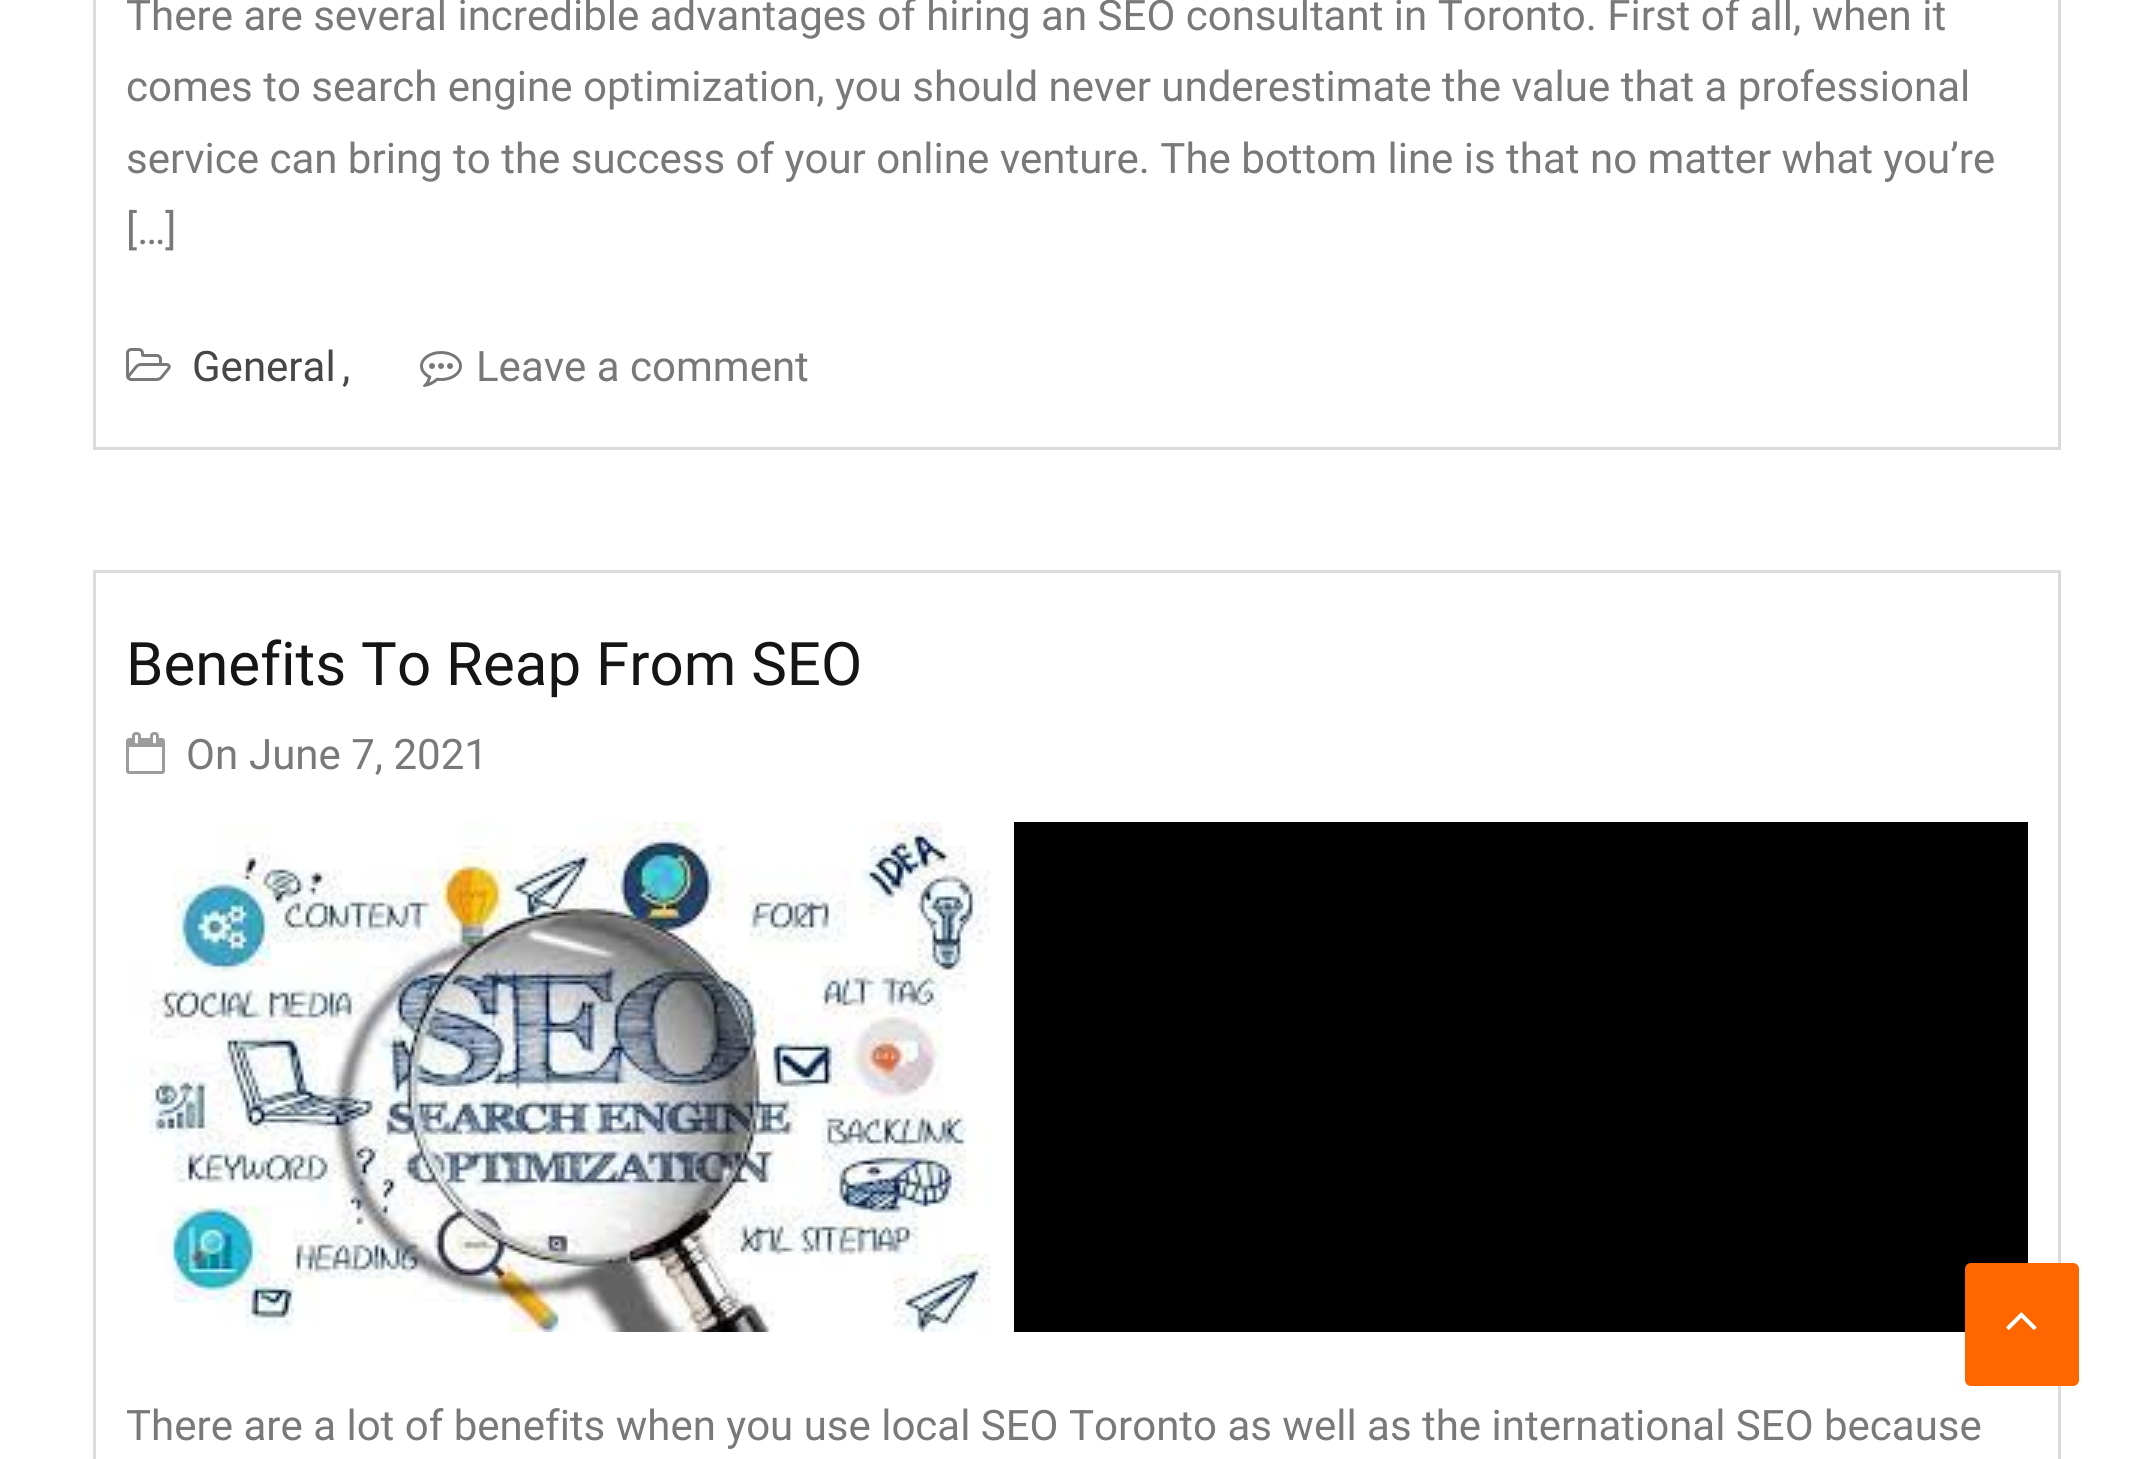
#include <cairo/cairo.h>
#include <math.h>
#include <stddef.h>

typedef struct { double x, y; const char *s; } line_t;
static cairo_t *cr;

static void rgb(unsigned color)
{
	cairo_set_source_rgb(cr, (color >> 16) / 255.0, (color >> 8 & 255) / 255.0, (color & 255) / 255.0);
}

static void rrect(double x, double y, double w, double h, double r)
{
	cairo_new_sub_path(cr);
	cairo_arc(cr, x + w - r, y + h - r, r, 0, M_PI / 2);
	cairo_arc(cr, x + r, y + h - r, r, M_PI / 2, M_PI);
	cairo_arc(cr, x + r, y + r, r, M_PI, 1.5 * M_PI);
	cairo_arc(cr, x + w - r, y + r, r, 1.5 * M_PI, 2 * M_PI);
	cairo_close_path(cr);
}

static void image(const char *path, double x, double y, double w, double h)
{
	cairo_surface_t *image = cairo_image_surface_create_from_png(path);
	cairo_save(cr);
	cairo_set_source_surface(cr, image, x, y);
	cairo_rectangle(cr, x, y, w, h);
	cairo_fill(cr);
	cairo_restore(cr);
	cairo_surface_destroy(image);
}

int main(void) {
	cairo_surface_t *surface = cairo_image_surface_create(CAIRO_FORMAT_RGB24, 2152, 1459);
	cr = cairo_create(surface);
	cairo_font_options_t *options = cairo_font_options_create();
	cairo_font_options_set_hint_metrics(options, CAIRO_HINT_METRICS_OFF);
	cairo_font_options_set_hint_style(options, CAIRO_HINT_STYLE_NONE);
	cairo_set_font_options(cr, options);
	cairo_set_miter_limit(cr, 4);
	rgb(0xffffff);
	cairo_paint(cr);
	cairo_rectangle(cr, 94.5, -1.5, 1965, 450);
	rgb(0xdbdbdb);
	cairo_set_line_width(cr, 3);
	cairo_stroke(cr);
	image("img/1.png", 126, 348, 45, 33);
	image("img/2.png", 420, 351, 42, 36);
	cairo_rectangle(cr, 94.5, 571.5, 1965, 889);
	cairo_stroke(cr);
	image("img/3.png", 126, 732, 39, 42);
	rgb(0x000000);
	cairo_rectangle(cr, 1014, 822, 1014, 510);
	cairo_fill(cr);
	image("img/4.png", 126, 822, 888, 510);
	rgb(0xff6600);
	rrect(1965, 1263, 114, 123, 6);
	cairo_fill(cr);
	image("img/5.png", 2006, 1312, 31, 18);
	cairo_select_font_face(cr, "Roboto", CAIRO_FONT_SLANT_NORMAL, CAIRO_FONT_WEIGHT_NORMAL);
	cairo_set_font_size(cr, 42);
	rgb(0x797979);
	{
		static const line_t items[] = {
			{126, 30, "There are several incredible advantages of hiring an SEO consultant in Toronto. First of all, when it"},
			{126, 101, "comes to search engine optimization, you should never underestimate the value that a professional"},
			{126, 173, "service can bring to the success of your online venture. The bottom line is that no matter what you’re"},
			{126, 244, "[…]"},
		};
		for (size_t i = 0; i < sizeof items / sizeof *items; i++) {
			cairo_move_to(cr, items[i].x, items[i].y);
			cairo_show_text(cr, items[i].s);
		}
	}
	rgb(0x474747);
	cairo_move_to(cr, 192, 381);
	cairo_show_text(cr, "General");
	cairo_move_to(cr, 342, 381);
	cairo_show_text(cr, ",");
	rgb(0x797979);
	cairo_move_to(cr, 476, 381);
	cairo_show_text(cr, "Leave a comment");
	cairo_set_font_size(cr, 60);
	rgb(0x151515);
	cairo_move_to(cr, 126, 685);
	cairo_show_text(cr, "Benefits To Reap From SEO");
	cairo_set_font_size(cr, 42);
	rgb(0x797979);
	{
		static const line_t items[] = {
			{186, 769, "On"},
			{249, 769, "June 7, 2021"},
			{126, 1440, "There are a lot of benefits when you use local SEO Toronto as well as the international SEO because"},
		};
		for (size_t i = 0; i < sizeof items / sizeof *items; i++) {
			cairo_move_to(cr, items[i].x, items[i].y);
			cairo_show_text(cr, items[i].s);
		}
	}
	cairo_surface_write_to_png(surface, "page.png");
	cairo_font_options_destroy(options);
	cairo_destroy(cr);
	cairo_surface_destroy(surface);
	return 0;
}
